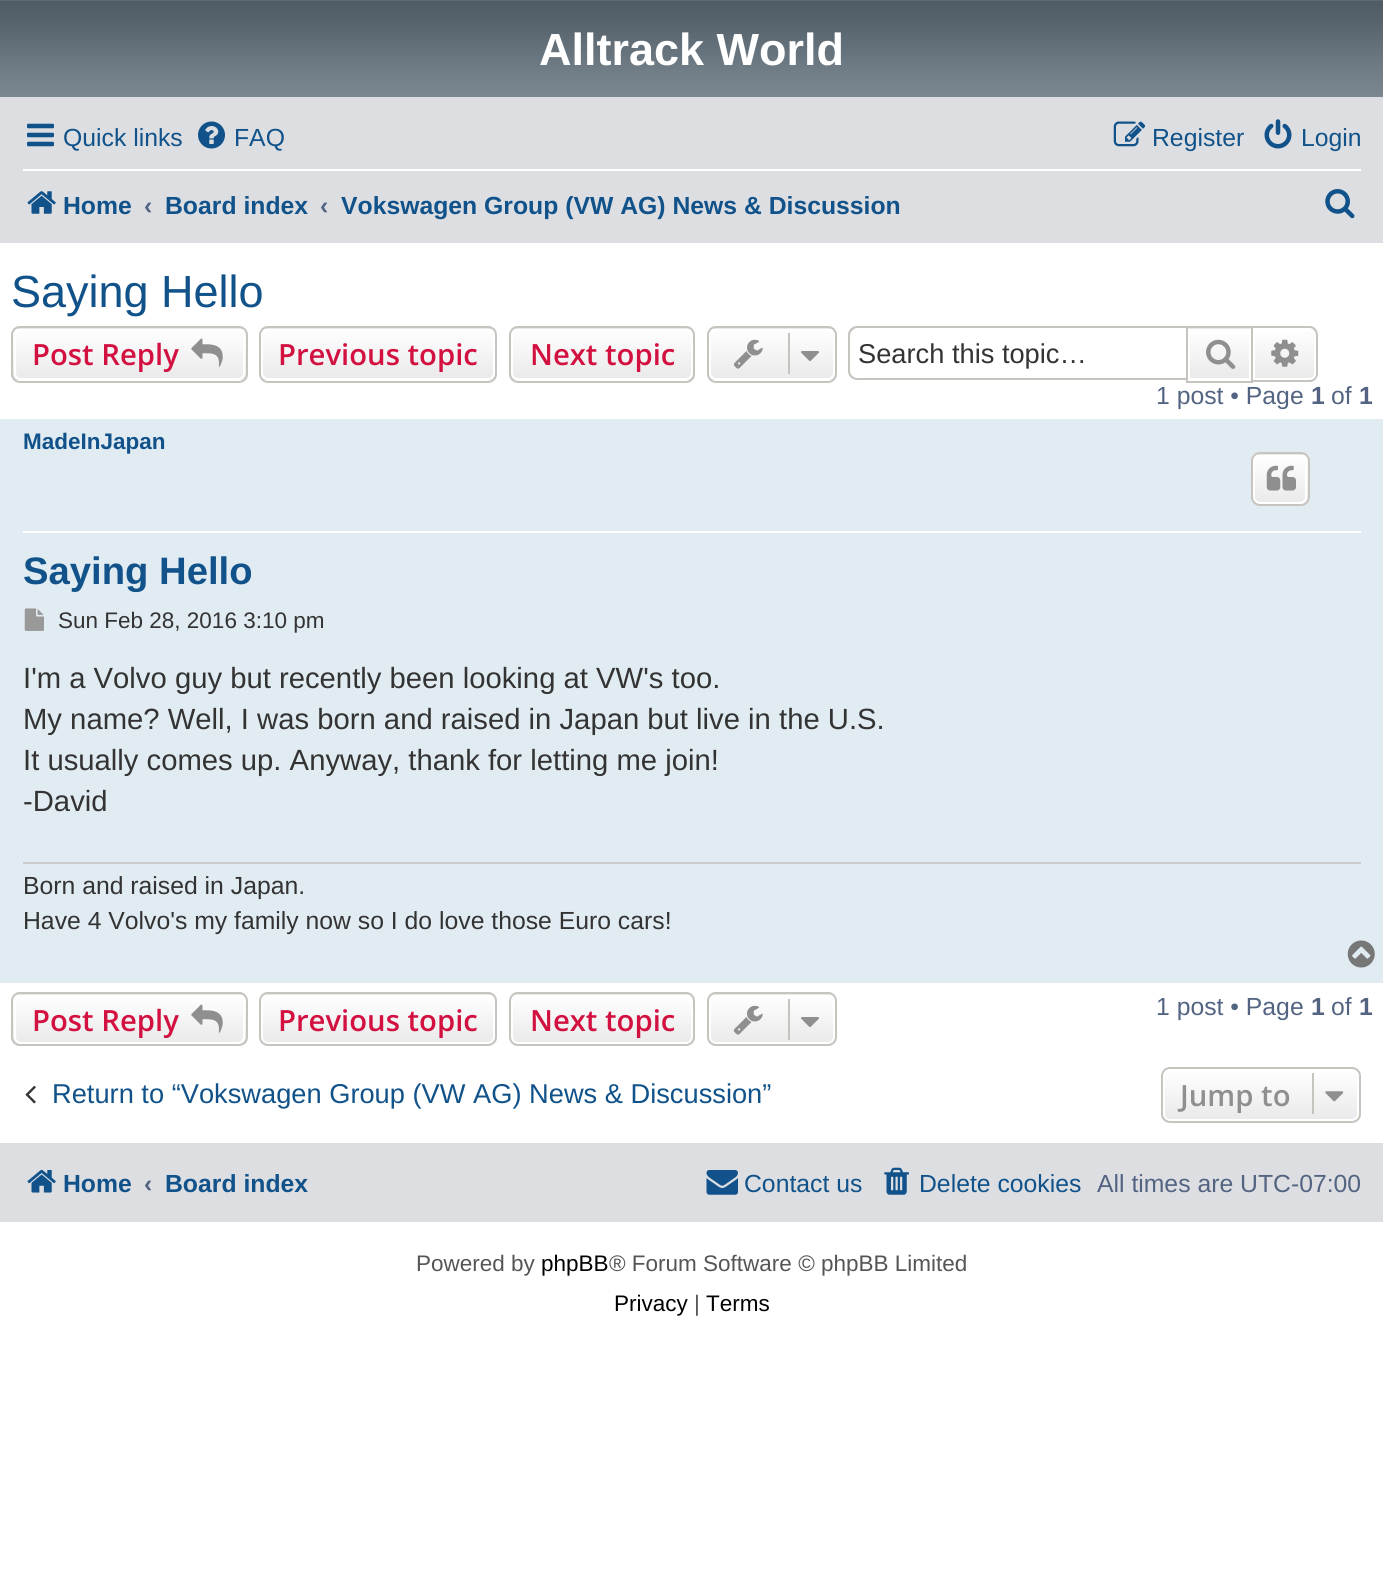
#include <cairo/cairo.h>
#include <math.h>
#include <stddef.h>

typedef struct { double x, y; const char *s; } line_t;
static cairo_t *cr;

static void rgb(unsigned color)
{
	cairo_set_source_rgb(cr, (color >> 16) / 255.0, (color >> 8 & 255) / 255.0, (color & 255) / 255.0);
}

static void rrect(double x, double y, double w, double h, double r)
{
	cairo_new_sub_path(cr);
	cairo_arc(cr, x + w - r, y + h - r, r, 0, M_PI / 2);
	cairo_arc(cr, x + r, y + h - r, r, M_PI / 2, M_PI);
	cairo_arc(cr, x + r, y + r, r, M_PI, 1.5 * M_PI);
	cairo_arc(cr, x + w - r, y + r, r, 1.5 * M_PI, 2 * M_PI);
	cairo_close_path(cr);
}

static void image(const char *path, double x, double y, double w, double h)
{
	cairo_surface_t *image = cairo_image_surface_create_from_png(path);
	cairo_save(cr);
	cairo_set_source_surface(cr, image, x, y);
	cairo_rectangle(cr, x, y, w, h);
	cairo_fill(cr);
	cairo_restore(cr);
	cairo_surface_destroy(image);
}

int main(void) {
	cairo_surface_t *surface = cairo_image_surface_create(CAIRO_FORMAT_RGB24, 1383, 1577);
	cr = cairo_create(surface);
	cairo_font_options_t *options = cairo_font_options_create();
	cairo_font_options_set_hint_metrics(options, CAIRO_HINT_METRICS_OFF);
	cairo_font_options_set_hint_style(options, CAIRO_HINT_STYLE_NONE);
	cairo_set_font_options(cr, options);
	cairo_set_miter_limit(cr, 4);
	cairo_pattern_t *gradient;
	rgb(0xffffff);
	cairo_paint(cr);
	gradient = cairo_pattern_create_linear(692, 0, 692, 99);
	cairo_pattern_add_color_stop_rgba(gradient, 0, 0.431, 0.467, 0.498, 1);
	cairo_pattern_add_color_stop_rgba(gradient, 0.01, 0.314, 0.361, 0.396, 1);
	cairo_pattern_add_color_stop_rgba(gradient, 0.2, 0.337, 0.384, 0.42, 1);
	cairo_pattern_add_color_stop_rgba(gradient, 0.75, 0.451, 0.498, 0.533, 1);
	cairo_pattern_add_color_stop_rgba(gradient, 1, 0.486, 0.533, 0.569, 1);
	cairo_set_source(cr, gradient);
	cairo_pattern_destroy(gradient);
	cairo_rectangle(cr, 0, 0, 1383, 97);
	cairo_fill(cr);
	rgb(0xdcdee2);
	cairo_rectangle(cr, 0, 97, 1383, 146);
	cairo_fill(cr);
	image("img/1.png", 27, 123, 27, 24);
	image("img/2.png", 198, 121, 27, 28);
	image("img/3.png", 1113, 121, 33, 26);
	image("img/4.png", 1264, 119, 28, 30);
	rgb(0xffffff);
	cairo_rectangle(cr, 23, 169, 1338, 2);
	cairo_fill(cr);
	image("img/5.png", 27, 191, 29, 23);
	image("img/6.png", 1325, 189, 30, 30);
	cairo_save(cr);
	rrect(11, 326, 237, 57, 9);
	cairo_clip(cr);
	gradient = cairo_pattern_create_linear(129, 277, 129, 329);
	cairo_pattern_add_color_stop_rgba(gradient, 0, 1, 1, 1, 1);
	cairo_pattern_add_color_stop_rgba(gradient, 1, 0.914, 0.914, 0.914, 1);
	cairo_set_source(cr, gradient);
	cairo_pattern_destroy(gradient);
	cairo_rectangle(cr, 11, 326, 237, 3);
	cairo_fill(cr);
	gradient = cairo_pattern_create_linear(129, 329, 129, 380);
	cairo_pattern_add_color_stop_rgba(gradient, 0, 1, 1, 1, 1);
	cairo_pattern_add_color_stop_rgba(gradient, 1, 0.914, 0.914, 0.914, 1);
	cairo_set_source(cr, gradient);
	cairo_pattern_destroy(gradient);
	cairo_rectangle(cr, 11, 329, 237, 51);
	cairo_fill(cr);
	cairo_restore(cr);
	rrect(15, 330, 229, 49, 6);
	cairo_stroke(cr);
	rrect(12, 327, 235, 55, 8);
	rgb(0xc7c3bf);
	cairo_stroke(cr);
	image("img/7.png", 191, 338, 32, 29);
	cairo_save(cr);
	rrect(259, 326, 238, 57, 9);
	cairo_clip(cr);
	gradient = cairo_pattern_create_linear(378, 277, 378, 329);
	cairo_pattern_add_color_stop_rgba(gradient, 0, 1, 1, 1, 1);
	cairo_pattern_add_color_stop_rgba(gradient, 1, 0.914, 0.914, 0.914, 1);
	cairo_set_source(cr, gradient);
	cairo_pattern_destroy(gradient);
	cairo_rectangle(cr, 259, 326, 238, 3);
	cairo_fill(cr);
	gradient = cairo_pattern_create_linear(378, 329, 378, 380);
	cairo_pattern_add_color_stop_rgba(gradient, 0, 1, 1, 1, 1);
	cairo_pattern_add_color_stop_rgba(gradient, 1, 0.914, 0.914, 0.914, 1);
	cairo_set_source(cr, gradient);
	cairo_pattern_destroy(gradient);
	cairo_rectangle(cr, 259, 329, 238, 51);
	cairo_fill(cr);
	cairo_restore(cr);
	rrect(262, 330, 232, 49, 6);
	rgb(0xffffff);
	cairo_stroke(cr);
	rrect(260, 327, 236, 55, 8);
	rgb(0xc7c3bf);
	cairo_stroke(cr);
	cairo_save(cr);
	rrect(509, 326, 186, 57, 9);
	cairo_clip(cr);
	gradient = cairo_pattern_create_linear(602, 277, 602, 329);
	cairo_pattern_add_color_stop_rgba(gradient, 0, 1, 1, 1, 1);
	cairo_pattern_add_color_stop_rgba(gradient, 1, 0.914, 0.914, 0.914, 1);
	cairo_set_source(cr, gradient);
	cairo_pattern_destroy(gradient);
	cairo_rectangle(cr, 509, 326, 186, 3);
	cairo_fill(cr);
	gradient = cairo_pattern_create_linear(602, 329, 602, 380);
	cairo_pattern_add_color_stop_rgba(gradient, 0, 1, 1, 1, 1);
	cairo_pattern_add_color_stop_rgba(gradient, 1, 0.914, 0.914, 0.914, 1);
	cairo_set_source(cr, gradient);
	cairo_pattern_destroy(gradient);
	cairo_rectangle(cr, 509, 329, 186, 51);
	cairo_fill(cr);
	cairo_restore(cr);
	rrect(512, 330, 180, 49, 6);
	rgb(0xffffff);
	cairo_stroke(cr);
	rrect(510, 327, 184, 55, 8);
	rgb(0xc7c3bf);
	cairo_stroke(cr);
	cairo_save(cr);
	rrect(707, 326, 130, 57, 9);
	cairo_clip(cr);
	gradient = cairo_pattern_create_linear(772, 277, 772, 329);
	cairo_pattern_add_color_stop_rgba(gradient, 0, 1, 1, 1, 1);
	cairo_pattern_add_color_stop_rgba(gradient, 1, 0.914, 0.914, 0.914, 1);
	cairo_set_source(cr, gradient);
	cairo_pattern_destroy(gradient);
	cairo_rectangle(cr, 707, 326, 130, 3);
	cairo_fill(cr);
	gradient = cairo_pattern_create_linear(772, 329, 772, 380);
	cairo_pattern_add_color_stop_rgba(gradient, 0, 1, 1, 1, 1);
	cairo_pattern_add_color_stop_rgba(gradient, 1, 0.914, 0.914, 0.914, 1);
	cairo_set_source(cr, gradient);
	cairo_pattern_destroy(gradient);
	cairo_rectangle(cr, 707, 329, 130, 51);
	cairo_fill(cr);
	cairo_restore(cr);
	rrect(710, 330, 124, 49, 6);
	rgb(0xffffff);
	cairo_stroke(cr);
	rrect(708, 327, 128, 55, 8);
	rgb(0xc7c3bf);
	cairo_stroke(cr);
	image("img/8.png", 733, 339, 30, 30);
	cairo_rectangle(cr, 788, 333, 2, 41);
	cairo_fill(cr);
	image("img/9.png", 801, 351, 18, 10);
	cairo_set_fill_rule(cr, CAIRO_FILL_RULE_EVEN_ODD);
	cairo_new_path(cr);
	cairo_move_to(cr, 857, 326);
	cairo_line_to(cr, 1186, 326);
	cairo_line_to(cr, 1186, 380);
	cairo_line_to(cr, 857, 380);
	cairo_curve_to(cr, 852, 380, 848, 376, 848, 371);
	cairo_line_to(cr, 848, 335);
	cairo_curve_to(cr, 848, 330, 852, 326, 857, 326);
	cairo_close_path(cr);
	cairo_move_to(cr, 857, 328);
	cairo_line_to(cr, 1186, 328);
	cairo_line_to(cr, 1186, 378);
	cairo_line_to(cr, 857, 378);
	cairo_curve_to(cr, 854, 378, 850, 375, 850, 371);
	cairo_line_to(cr, 850, 335);
	cairo_curve_to(cr, 850, 332, 854, 328, 857, 328);
	cairo_close_path(cr);
	cairo_fill(cr);
	rgb(0xe9e9e9);
	cairo_rectangle(cr, 1188, 328, 63, 1);
	cairo_fill(cr);
	gradient = cairo_pattern_create_linear(1220, 329, 1220, 380);
	cairo_pattern_add_color_stop_rgba(gradient, 0, 1, 1, 1, 1);
	cairo_pattern_add_color_stop_rgba(gradient, 1, 0.914, 0.914, 0.914, 1);
	cairo_set_source(cr, gradient);
	cairo_pattern_destroy(gradient);
	cairo_rectangle(cr, 1190, 335, 59, 43);
	cairo_fill(cr);
	cairo_rectangle(cr, 1187, 327, 65, 55);
	rgb(0xc7c3bf);
	cairo_stroke(cr);
	image("img/10.png", 1206, 339, 30, 30);
	gradient = cairo_pattern_create_linear(1285, 329, 1285, 380);
	cairo_pattern_add_color_stop_rgba(gradient, 0, 1, 1, 1, 1);
	cairo_pattern_add_color_stop_rgba(gradient, 1, 0.914, 0.914, 0.914, 1);
	cairo_set_source(cr, gradient);
	cairo_pattern_destroy(gradient);
	cairo_new_path(cr);
	cairo_move_to(cr, 1254, 330);
	cairo_line_to(cr, 1309, 330);
	cairo_curve_to(cr, 1312.5, 330, 1315, 332.5, 1315, 336);
	cairo_line_to(cr, 1315, 373);
	cairo_curve_to(cr, 1315, 376.5, 1312.5, 379, 1309, 379);
	cairo_line_to(cr, 1254, 379);
	cairo_close_path(cr);
	cairo_fill_preserve(cr);
	rgb(0xffffff);
	cairo_stroke(cr);
	rgb(0xc7c3bf);
	cairo_new_path(cr);
	cairo_move_to(cr, 1253, 326);
	cairo_line_to(cr, 1310, 326);
	cairo_curve_to(cr, 1314, 326, 1318, 330, 1318, 335);
	cairo_line_to(cr, 1318, 374);
	cairo_curve_to(cr, 1318, 378, 1314, 382, 1310, 382);
	cairo_line_to(cr, 1253, 382);
	cairo_close_path(cr);
	cairo_move_to(cr, 1253, 328);
	cairo_line_to(cr, 1310, 328);
	cairo_curve_to(cr, 1313, 328, 1316, 332, 1316, 335);
	cairo_line_to(cr, 1316, 374);
	cairo_curve_to(cr, 1316, 377, 1313, 380, 1310, 380);
	cairo_line_to(cr, 1253, 380);
	cairo_close_path(cr);
	cairo_fill(cr);
	image("img/11.png", 1271, 339, 28, 28);
	rgb(0xe1ebf2);
	cairo_rectangle(cr, 0, 419, 1383, 564);
	cairo_fill(cr);
	rgb(0xffffff);
	cairo_rectangle(cr, 23, 531, 1338, 2);
	cairo_fill(cr);
	cairo_save(cr);
	cairo_set_fill_rule(cr, CAIRO_FILL_RULE_WINDING);
	rrect(1251, 452, 59, 54, 9);
	cairo_clip(cr);
	gradient = cairo_pattern_create_linear(1280, 405, 1280, 455);
	cairo_pattern_add_color_stop_rgba(gradient, 0, 1, 1, 1, 1);
	cairo_pattern_add_color_stop_rgba(gradient, 1, 0.914, 0.914, 0.914, 1);
	cairo_set_source(cr, gradient);
	cairo_pattern_destroy(gradient);
	cairo_rectangle(cr, 1251, 452, 59, 3);
	cairo_fill(cr);
	gradient = cairo_pattern_create_linear(1280, 455, 1280, 504);
	cairo_pattern_add_color_stop_rgba(gradient, 0, 1, 1, 1, 1);
	cairo_pattern_add_color_stop_rgba(gradient, 1, 0.914, 0.914, 0.914, 1);
	cairo_set_source(cr, gradient);
	cairo_pattern_destroy(gradient);
	cairo_rectangle(cr, 1251, 455, 59, 49);
	cairo_fill(cr);
	cairo_restore(cr);
	rrect(1254, 456, 52, 47, 6);
	cairo_stroke(cr);
	rrect(1252, 453, 57, 52, 8);
	rgb(0xc7c3bf);
	cairo_stroke(cr);
	image("img/12.png", 1266, 465, 30, 26);
	image("img/13.png", 24, 608, 20, 23);
	rgb(0xcccccc);
	cairo_rectangle(cr, 23, 862, 1338, 2);
	cairo_fill(cr);
	image("img/14.png", 1347, 940, 28, 28);
	cairo_save(cr);
	cairo_set_fill_rule(cr, CAIRO_FILL_RULE_WINDING);
	rrect(11, 992, 237, 54, 9);
	cairo_clip(cr);
	gradient = cairo_pattern_create_linear(129, 945, 129, 995);
	cairo_pattern_add_color_stop_rgba(gradient, 0, 1, 1, 1, 1);
	cairo_pattern_add_color_stop_rgba(gradient, 1, 0.914, 0.914, 0.914, 1);
	cairo_set_source(cr, gradient);
	cairo_pattern_destroy(gradient);
	cairo_rectangle(cr, 11, 992, 237, 3);
	cairo_fill(cr);
	gradient = cairo_pattern_create_linear(129, 995, 129, 1044);
	cairo_pattern_add_color_stop_rgba(gradient, 0, 1, 1, 1, 1);
	cairo_pattern_add_color_stop_rgba(gradient, 1, 0.914, 0.914, 0.914, 1);
	cairo_set_source(cr, gradient);
	cairo_pattern_destroy(gradient);
	cairo_rectangle(cr, 11, 995, 237, 49);
	cairo_fill(cr);
	cairo_restore(cr);
	rrect(15, 996, 229, 47, 6);
	rgb(0xffffff);
	cairo_stroke(cr);
	rrect(12, 993, 235, 52, 8);
	rgb(0xc7c3bf);
	cairo_stroke(cr);
	image("img/15.png", 191, 1004, 32, 29);
	cairo_save(cr);
	cairo_set_fill_rule(cr, CAIRO_FILL_RULE_WINDING);
	rrect(259, 992, 238, 54, 9);
	cairo_clip(cr);
	gradient = cairo_pattern_create_linear(378, 945, 378, 995);
	cairo_pattern_add_color_stop_rgba(gradient, 0, 1, 1, 1, 1);
	cairo_pattern_add_color_stop_rgba(gradient, 1, 0.914, 0.914, 0.914, 1);
	cairo_set_source(cr, gradient);
	cairo_pattern_destroy(gradient);
	cairo_rectangle(cr, 259, 992, 238, 3);
	cairo_fill(cr);
	gradient = cairo_pattern_create_linear(378, 995, 378, 1044);
	cairo_pattern_add_color_stop_rgba(gradient, 0, 1, 1, 1, 1);
	cairo_pattern_add_color_stop_rgba(gradient, 1, 0.914, 0.914, 0.914, 1);
	cairo_set_source(cr, gradient);
	cairo_pattern_destroy(gradient);
	cairo_rectangle(cr, 259, 995, 238, 49);
	cairo_fill(cr);
	cairo_restore(cr);
	rrect(262, 996, 232, 47, 6);
	rgb(0xffffff);
	cairo_stroke(cr);
	rrect(260, 993, 236, 52, 8);
	rgb(0xc7c3bf);
	cairo_stroke(cr);
	cairo_save(cr);
	cairo_set_fill_rule(cr, CAIRO_FILL_RULE_WINDING);
	rrect(509, 992, 186, 54, 9);
	cairo_clip(cr);
	gradient = cairo_pattern_create_linear(602, 945, 602, 995);
	cairo_pattern_add_color_stop_rgba(gradient, 0, 1, 1, 1, 1);
	cairo_pattern_add_color_stop_rgba(gradient, 1, 0.914, 0.914, 0.914, 1);
	cairo_set_source(cr, gradient);
	cairo_pattern_destroy(gradient);
	cairo_rectangle(cr, 509, 992, 186, 3);
	cairo_fill(cr);
	gradient = cairo_pattern_create_linear(602, 995, 602, 1044);
	cairo_pattern_add_color_stop_rgba(gradient, 0, 1, 1, 1, 1);
	cairo_pattern_add_color_stop_rgba(gradient, 1, 0.914, 0.914, 0.914, 1);
	cairo_set_source(cr, gradient);
	cairo_pattern_destroy(gradient);
	cairo_rectangle(cr, 509, 995, 186, 49);
	cairo_fill(cr);
	cairo_restore(cr);
	rrect(512, 996, 180, 47, 6);
	rgb(0xffffff);
	cairo_stroke(cr);
	rrect(510, 993, 184, 52, 8);
	rgb(0xc7c3bf);
	cairo_stroke(cr);
	cairo_save(cr);
	cairo_set_fill_rule(cr, CAIRO_FILL_RULE_WINDING);
	rrect(707, 992, 130, 54, 9);
	cairo_clip(cr);
	gradient = cairo_pattern_create_linear(772, 945, 772, 995);
	cairo_pattern_add_color_stop_rgba(gradient, 0, 1, 1, 1, 1);
	cairo_pattern_add_color_stop_rgba(gradient, 1, 0.914, 0.914, 0.914, 1);
	cairo_set_source(cr, gradient);
	cairo_pattern_destroy(gradient);
	cairo_rectangle(cr, 707, 992, 130, 3);
	cairo_fill(cr);
	gradient = cairo_pattern_create_linear(772, 995, 772, 1044);
	cairo_pattern_add_color_stop_rgba(gradient, 0, 1, 1, 1, 1);
	cairo_pattern_add_color_stop_rgba(gradient, 1, 0.914, 0.914, 0.914, 1);
	cairo_set_source(cr, gradient);
	cairo_pattern_destroy(gradient);
	cairo_rectangle(cr, 707, 995, 130, 49);
	cairo_fill(cr);
	cairo_restore(cr);
	rrect(710, 996, 124, 47, 6);
	rgb(0xffffff);
	cairo_stroke(cr);
	rrect(708, 993, 128, 52, 8);
	rgb(0xc7c3bf);
	cairo_stroke(cr);
	image("img/16.png", 733, 1005, 30, 30);
	cairo_rectangle(cr, 788, 999, 2, 41);
	cairo_fill(cr);
	image("img/17.png", 801, 1017, 18, 10);
	image("img/18.png", 25, 1085, 11, 19);
	cairo_save(cr);
	cairo_set_fill_rule(cr, CAIRO_FILL_RULE_WINDING);
	rrect(1161, 1067, 200, 56, 9);
	cairo_clip(cr);
	gradient = cairo_pattern_create_linear(1261, 1069, 1261, 1121);
	cairo_pattern_add_color_stop_rgba(gradient, 0, 1, 1, 1, 1);
	cairo_pattern_add_color_stop_rgba(gradient, 1, 0.914, 0.914, 0.914, 1);
	cairo_set_source(cr, gradient);
	cairo_pattern_destroy(gradient);
	cairo_rectangle(cr, 1161, 1069, 200, 52);
	cairo_fill(cr);
	cairo_restore(cr);
	rrect(1164, 1070, 194, 50, 6);
	rgb(0xffffff);
	cairo_stroke(cr);
	rrect(1162, 1068, 198, 54, 8);
	rgb(0xc7c3bf);
	cairo_stroke(cr);
	cairo_rectangle(cr, 1312, 1073, 2, 41);
	cairo_fill(cr);
	image("img/19.png", 1325, 1091, 19, 11);
	rgb(0xdcdee2);
	cairo_rectangle(cr, 0, 1143, 1383, 79);
	cairo_fill(cr);
	image("img/20.png", 27, 1170, 29, 23);
	image("img/21.png", 706, 1170, 32, 25);
	image("img/22.png", 884, 1167, 25, 28);
	cairo_select_font_face(cr, "Liberation Sans", CAIRO_FONT_SLANT_NORMAL, CAIRO_FONT_WEIGHT_BOLD);
	cairo_set_font_size(cr, 45);
	rgb(0xffffff);
	cairo_move_to(cr, 539, 65);
	cairo_show_text(cr, "Alltrack World");
	cairo_select_font_face(cr, "Liberation Sans", CAIRO_FONT_SLANT_NORMAL, CAIRO_FONT_WEIGHT_NORMAL);
	cairo_set_font_size(cr, 24.75);
	rgb(0x105289);
	{
		static const line_t items[] = {
			{63, 146, "Quick links"},
			{234, 146, "FAQ"},
			{1152, 146, "Register"},
			{1301, 146, "Login"},
		};
		for (size_t i = 0; i < sizeof items / sizeof *items; i++) {
			cairo_move_to(cr, items[i].x, items[i].y);
			cairo_show_text(cr, items[i].s);
		}
	}
	cairo_select_font_face(cr, "Liberation Sans", CAIRO_FONT_SLANT_NORMAL, CAIRO_FONT_WEIGHT_BOLD);
	cairo_move_to(cr, 63, 214);
	cairo_show_text(cr, "Home");
	rgb(0x536482);
	cairo_move_to(cr, 144, 214);
	cairo_show_text(cr, "‹");
	rgb(0x105289);
	cairo_move_to(cr, 165, 214);
	cairo_show_text(cr, "Board index");
	rgb(0x536482);
	cairo_move_to(cr, 320, 214);
	cairo_show_text(cr, "‹");
	rgb(0x105289);
	cairo_move_to(cr, 341, 214);
	cairo_show_text(cr, "Vokswagen Group (VW AG) News & Discussion");
	cairo_select_font_face(cr, "Liberation Sans", CAIRO_FONT_SLANT_NORMAL, CAIRO_FONT_WEIGHT_NORMAL);
	cairo_set_font_size(cr, 45);
	cairo_move_to(cr, 11, 307);
	cairo_show_text(cr, "Saying Hello");
	cairo_select_font_face(cr, "Open Sans SemiBold", CAIRO_FONT_SLANT_NORMAL, CAIRO_FONT_WEIGHT_NORMAL);
	cairo_set_font_size(cr, 29.25);
	rgb(0xd31141);
	{
		static const line_t items[] = {
			{32, 365, "Post Reply"},
			{278, 365, "Previous topic"},
			{530, 365, "Next topic"},
		};
		for (size_t i = 0; i < sizeof items / sizeof *items; i++) {
			cairo_move_to(cr, items[i].x, items[i].y);
			cairo_show_text(cr, items[i].s);
		}
	}
	cairo_select_font_face(cr, "Liberation Sans", CAIRO_FONT_SLANT_NORMAL, CAIRO_FONT_WEIGHT_NORMAL);
	cairo_set_font_size(cr, 27.25);
	rgb(0x333333);
	cairo_move_to(cr, 858, 363);
	cairo_show_text(cr, "Search this topic…");
	cairo_set_font_size(cr, 24.75);
	rgb(0x536482);
	cairo_move_to(cr, 1156, 404);
	cairo_show_text(cr, "1 post • Page");
	cairo_select_font_face(cr, "Liberation Sans", CAIRO_FONT_SLANT_NORMAL, CAIRO_FONT_WEIGHT_BOLD);
	cairo_move_to(cr, 1311, 404);
	cairo_show_text(cr, "1");
	cairo_select_font_face(cr, "Liberation Sans", CAIRO_FONT_SLANT_NORMAL, CAIRO_FONT_WEIGHT_NORMAL);
	cairo_move_to(cr, 1331, 404);
	cairo_show_text(cr, "of");
	cairo_select_font_face(cr, "Liberation Sans", CAIRO_FONT_SLANT_NORMAL, CAIRO_FONT_WEIGHT_BOLD);
	cairo_move_to(cr, 1359, 404);
	cairo_show_text(cr, "1");
	cairo_set_font_size(cr, 22.5);
	rgb(0x105289);
	cairo_move_to(cr, 23, 449);
	cairo_show_text(cr, "MadeInJapan");
	cairo_set_font_size(cr, 38.25);
	cairo_move_to(cr, 23, 584);
	cairo_show_text(cr, "Saying Hello");
	cairo_select_font_face(cr, "Liberation Sans", CAIRO_FONT_SLANT_NORMAL, CAIRO_FONT_WEIGHT_NORMAL);
	cairo_set_font_size(cr, 22.5);
	rgb(0x333333);
	cairo_move_to(cr, 58, 628);
	cairo_show_text(cr, "Sun Feb 28, 2016 3:10 pm");
	cairo_set_font_size(cr, 29.25);
	{
		static const line_t items[] = {
			{23, 688, "I'm a Volvo guy but recently been looking at VW's too."},
			{23, 729, "My name? Well, I was born and raised in Japan but live in the U.S."},
			{23, 770, "It usually comes up. Anyway, thank for letting me join!"},
			{23, 811, "-David"},
		};
		for (size_t i = 0; i < sizeof items / sizeof *items; i++) {
			cairo_move_to(cr, items[i].x, items[i].y);
			cairo_show_text(cr, items[i].s);
		}
	}
	cairo_set_font_size(cr, 24.75);
	cairo_move_to(cr, 23, 894);
	cairo_show_text(cr, "Born and raised in Japan.");
	cairo_move_to(cr, 23, 929);
	cairo_show_text(cr, "Have 4 Volvo's my family now so I do love those Euro cars!");
	cairo_select_font_face(cr, "Open Sans SemiBold", CAIRO_FONT_SLANT_NORMAL, CAIRO_FONT_WEIGHT_NORMAL);
	cairo_set_font_size(cr, 29.25);
	rgb(0xd31141);
	{
		static const line_t items[] = {
			{32, 1031, "Post Reply"},
			{278, 1031, "Previous topic"},
			{530, 1031, "Next topic"},
		};
		for (size_t i = 0; i < sizeof items / sizeof *items; i++) {
			cairo_move_to(cr, items[i].x, items[i].y);
			cairo_show_text(cr, items[i].s);
		}
	}
	cairo_select_font_face(cr, "Liberation Sans", CAIRO_FONT_SLANT_NORMAL, CAIRO_FONT_WEIGHT_NORMAL);
	cairo_set_font_size(cr, 24.75);
	rgb(0x536482);
	cairo_move_to(cr, 1156, 1015);
	cairo_show_text(cr, "1 post • Page");
	cairo_select_font_face(cr, "Liberation Sans", CAIRO_FONT_SLANT_NORMAL, CAIRO_FONT_WEIGHT_BOLD);
	cairo_move_to(cr, 1311, 1015);
	cairo_show_text(cr, "1");
	cairo_select_font_face(cr, "Liberation Sans", CAIRO_FONT_SLANT_NORMAL, CAIRO_FONT_WEIGHT_NORMAL);
	cairo_move_to(cr, 1331, 1015);
	cairo_show_text(cr, "of");
	cairo_select_font_face(cr, "Liberation Sans", CAIRO_FONT_SLANT_NORMAL, CAIRO_FONT_WEIGHT_BOLD);
	cairo_move_to(cr, 1359, 1015);
	cairo_show_text(cr, "1");
	cairo_select_font_face(cr, "Liberation Sans", CAIRO_FONT_SLANT_NORMAL, CAIRO_FONT_WEIGHT_NORMAL);
	cairo_set_font_size(cr, 27.25);
	rgb(0x105289);
	cairo_move_to(cr, 52, 1103);
	cairo_show_text(cr, "Return to “Vokswagen Group (VW AG) News & Discussion”");
	cairo_select_font_face(cr, "Open Sans SemiBold", CAIRO_FONT_SLANT_NORMAL, CAIRO_FONT_WEIGHT_NORMAL);
	cairo_set_font_size(cr, 29.25);
	rgb(0x8f8f8f);
	cairo_move_to(cr, 1180, 1106);
	cairo_show_text(cr, "Jump to");
	cairo_select_font_face(cr, "Liberation Sans", CAIRO_FONT_SLANT_NORMAL, CAIRO_FONT_WEIGHT_BOLD);
	cairo_set_font_size(cr, 24.75);
	rgb(0x105289);
	cairo_move_to(cr, 63, 1192);
	cairo_show_text(cr, "Home");
	rgb(0x536482);
	cairo_move_to(cr, 144, 1192);
	cairo_show_text(cr, "‹");
	rgb(0x105289);
	cairo_move_to(cr, 165, 1192);
	cairo_show_text(cr, "Board index");
	cairo_select_font_face(cr, "Liberation Sans", CAIRO_FONT_SLANT_NORMAL, CAIRO_FONT_WEIGHT_NORMAL);
	cairo_move_to(cr, 744, 1192);
	cairo_show_text(cr, "Contact us");
	cairo_move_to(cr, 919, 1192);
	cairo_show_text(cr, "Delete cookies");
	rgb(0x536482);
	cairo_move_to(cr, 1097, 1192);
	cairo_show_text(cr, "All times are UTC-07:00");
	cairo_set_font_size(cr, 22.5);
	rgb(0x555555);
	cairo_move_to(cr, 416, 1271);
	cairo_show_text(cr, "Powered by");
	rgb(0x000000);
	cairo_move_to(cr, 541, 1271);
	cairo_show_text(cr, "phpBB");
	rgb(0x555555);
	cairo_move_to(cr, 609, 1271);
	cairo_show_text(cr, "® Forum Software © phpBB Limited");
	rgb(0x000000);
	cairo_move_to(cr, 614, 1311);
	cairo_show_text(cr, "Privacy");
	rgb(0x555555);
	cairo_move_to(cr, 694, 1311);
	cairo_show_text(cr, "|");
	rgb(0x000000);
	cairo_move_to(cr, 706, 1311);
	cairo_show_text(cr, "Terms");
	cairo_surface_write_to_png(surface, "page.png");
	cairo_font_options_destroy(options);
	cairo_destroy(cr);
	cairo_surface_destroy(surface);
	return 0;
}
